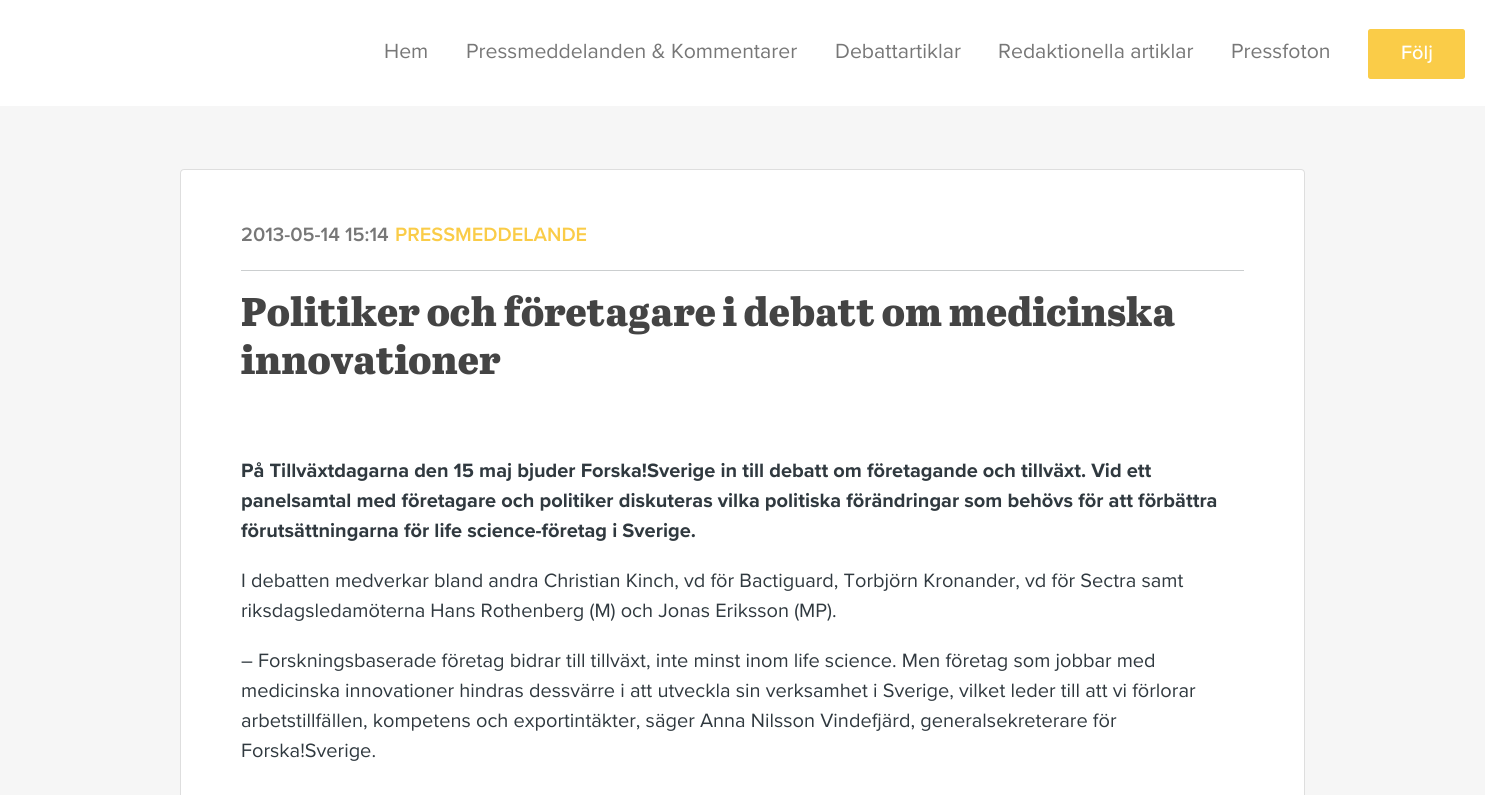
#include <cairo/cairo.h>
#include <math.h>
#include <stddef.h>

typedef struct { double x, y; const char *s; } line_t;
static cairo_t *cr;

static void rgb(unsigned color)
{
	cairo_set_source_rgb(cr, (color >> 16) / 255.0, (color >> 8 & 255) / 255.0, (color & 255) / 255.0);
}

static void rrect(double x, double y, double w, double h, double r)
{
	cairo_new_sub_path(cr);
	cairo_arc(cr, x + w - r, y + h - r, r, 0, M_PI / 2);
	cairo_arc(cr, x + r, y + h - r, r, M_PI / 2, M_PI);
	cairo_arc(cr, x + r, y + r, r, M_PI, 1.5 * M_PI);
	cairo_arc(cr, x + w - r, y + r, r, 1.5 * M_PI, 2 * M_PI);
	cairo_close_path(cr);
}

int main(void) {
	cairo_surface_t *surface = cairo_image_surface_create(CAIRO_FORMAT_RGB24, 1485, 795);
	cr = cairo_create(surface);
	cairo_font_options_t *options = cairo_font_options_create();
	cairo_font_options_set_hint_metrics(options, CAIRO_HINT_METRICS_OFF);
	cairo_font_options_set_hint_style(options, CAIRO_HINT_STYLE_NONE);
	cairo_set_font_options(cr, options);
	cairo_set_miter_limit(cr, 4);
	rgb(0xffffff);
	cairo_paint(cr);
	rgb(0xfacc48);
	rrect(1369.5, 30.5, 94, 47, 1);
	cairo_fill_preserve(cr);
	cairo_set_line_width(cr, 3);
	cairo_stroke(cr);
	rgb(0xf6f6f6);
	cairo_rectangle(cr, 0, 106, 1485, 689);
	cairo_fill(cr);
	rgb(0xffffff);
	rrect(180.5, 169.5, 1124, 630, 3.5);
	cairo_fill_preserve(cr);
	rgb(0xdedede);
	cairo_set_line_width(cr, 1);
	cairo_stroke(cr);
	rgb(0xcbcecf);
	cairo_rectangle(cr, 241, 270, 1003, 1);
	cairo_fill(cr);
	cairo_select_font_face(cr, "Proxima Nova", CAIRO_FONT_SLANT_NORMAL, CAIRO_FONT_WEIGHT_NORMAL);
	cairo_set_font_size(cr, 21.25);
	rgb(0x777777);
	{
		static const line_t items[] = {
			{384, 58, "Hem"},
			{466, 58, "Pressmeddelanden & Kommentarer"},
			{835, 58, "Debattartiklar"},
			{998, 58, "Redaktionella artiklar"},
			{1231, 58, "Pressfoton"},
		};
		for (size_t i = 0; i < sizeof items / sizeof *items; i++) {
			cairo_move_to(cr, items[i].x, items[i].y);
			cairo_show_text(cr, items[i].s);
		}
	}
	cairo_select_font_face(cr, "Proxima Nova Medium", CAIRO_FONT_SLANT_NORMAL, CAIRO_FONT_WEIGHT_NORMAL);
	cairo_set_font_size(cr, 20);
	rgb(0xffffff);
	cairo_move_to(cr, 1401, 59);
	cairo_show_text(cr, "Följ");
	cairo_select_font_face(cr, "Proxima Nova SemiBold", CAIRO_FONT_SLANT_NORMAL, CAIRO_FONT_WEIGHT_NORMAL);
	rgb(0x777777);
	cairo_move_to(cr, 241, 241);
	cairo_show_text(cr, "2013-05-14 15:14");
	rgb(0xfacc48);
	cairo_move_to(cr, 395, 241);
	cairo_show_text(cr, "PRESSMEDDELANDE");
	cairo_select_font_face(cr, "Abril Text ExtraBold", CAIRO_FONT_SLANT_NORMAL, CAIRO_FONT_WEIGHT_NORMAL);
	cairo_set_font_size(cr, 40);
	rgb(0x444444);
	cairo_move_to(cr, 241, 326);
	cairo_show_text(cr, "Politiker och företagare i debatt om medicinska");
	cairo_move_to(cr, 241, 374);
	cairo_show_text(cr, "innovationer");
	cairo_select_font_face(cr, "Proxima Nova", CAIRO_FONT_SLANT_NORMAL, CAIRO_FONT_WEIGHT_BOLD);
	cairo_set_font_size(cr, 20);
	rgb(0x30393f);
	{
		static const line_t items[] = {
			{241, 477, "På Tillväxtdagarna den 15 maj bjuder Forska!Sverige in till debatt om företagande och tillväxt. Vid ett"},
			{241, 507, "panelsamtal med företagare och politiker diskuteras vilka politiska förändringar som behövs för att förbättra"},
			{241, 537, "förutsättningarna för life science-företag i Sverige."},
		};
		for (size_t i = 0; i < sizeof items / sizeof *items; i++) {
			cairo_move_to(cr, items[i].x, items[i].y);
			cairo_show_text(cr, items[i].s);
		}
	}
	cairo_select_font_face(cr, "Proxima Nova", CAIRO_FONT_SLANT_NORMAL, CAIRO_FONT_WEIGHT_NORMAL);
	{
		static const line_t items[] = {
			{241, 587, "I debatten medverkar bland andra Christian Kinch, vd för Bactiguard, Torbjörn Kronander, vd för Sectra samt"},
			{241, 617, "riksdagsledamöterna Hans Rothenberg (M) och Jonas Eriksson (MP)."},
			{241, 667, "– Forskningsbaserade företag bidrar till tillväxt, inte minst inom life science. Men företag som jobbar med"},
			{241, 697, "medicinska innovationer hindras dessvärre i att utveckla sin verksamhet i Sverige, vilket leder till att vi förlorar"},
			{241, 727, "arbetstillfällen, kompetens och exportintäkter, säger Anna Nilsson Vindefjärd, generalsekreterare för"},
			{241, 757, "Forska!Sverige."},
		};
		for (size_t i = 0; i < sizeof items / sizeof *items; i++) {
			cairo_move_to(cr, items[i].x, items[i].y);
			cairo_show_text(cr, items[i].s);
		}
	}
	cairo_surface_write_to_png(surface, "page.png");
	cairo_font_options_destroy(options);
	cairo_destroy(cr);
	cairo_surface_destroy(surface);
	return 0;
}
